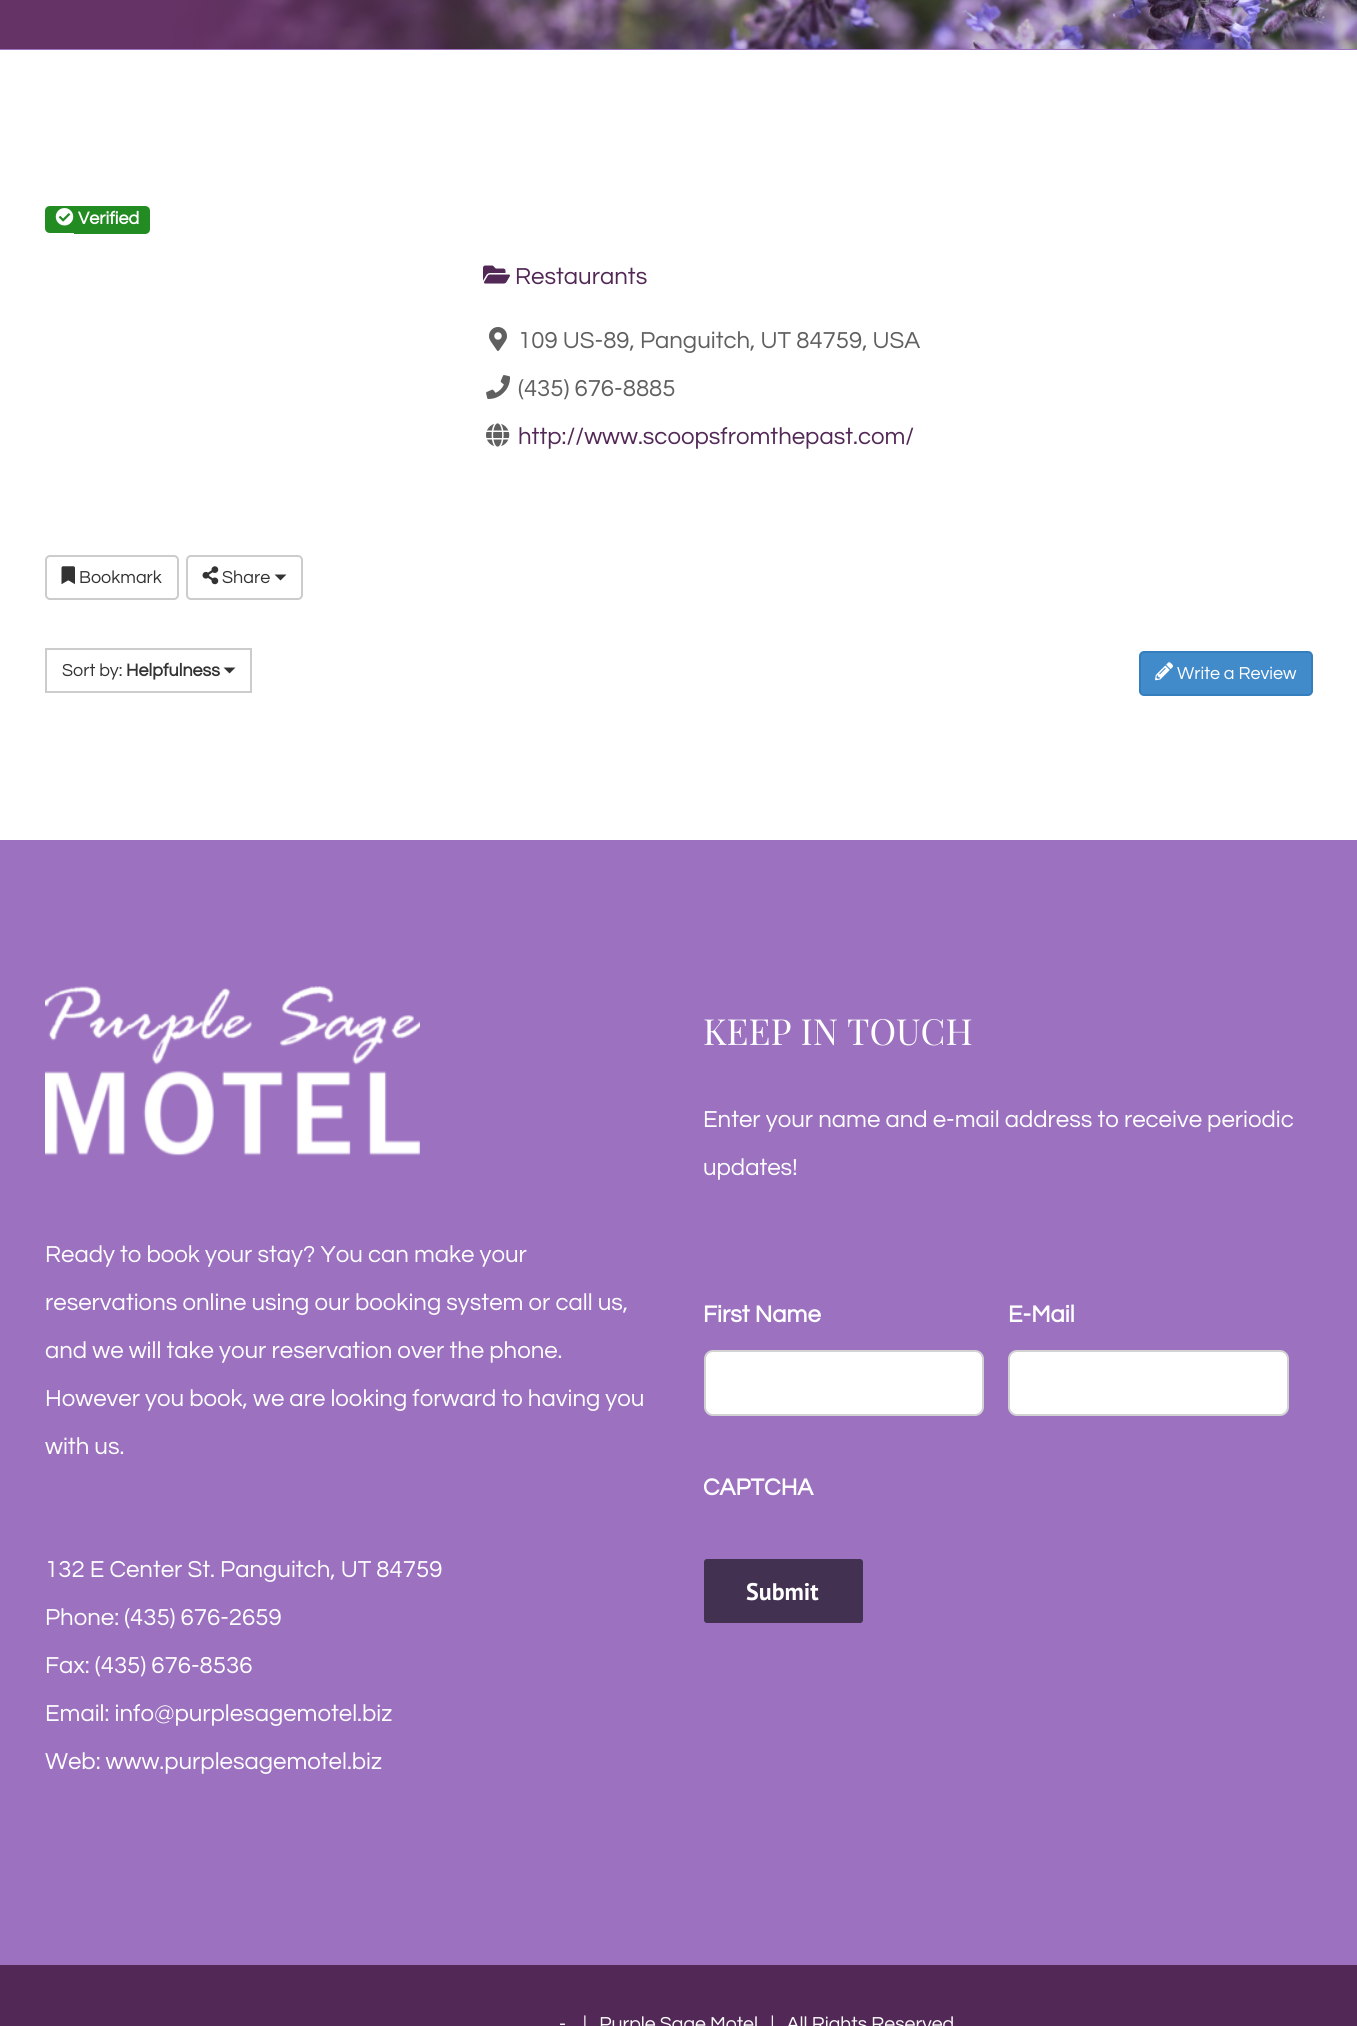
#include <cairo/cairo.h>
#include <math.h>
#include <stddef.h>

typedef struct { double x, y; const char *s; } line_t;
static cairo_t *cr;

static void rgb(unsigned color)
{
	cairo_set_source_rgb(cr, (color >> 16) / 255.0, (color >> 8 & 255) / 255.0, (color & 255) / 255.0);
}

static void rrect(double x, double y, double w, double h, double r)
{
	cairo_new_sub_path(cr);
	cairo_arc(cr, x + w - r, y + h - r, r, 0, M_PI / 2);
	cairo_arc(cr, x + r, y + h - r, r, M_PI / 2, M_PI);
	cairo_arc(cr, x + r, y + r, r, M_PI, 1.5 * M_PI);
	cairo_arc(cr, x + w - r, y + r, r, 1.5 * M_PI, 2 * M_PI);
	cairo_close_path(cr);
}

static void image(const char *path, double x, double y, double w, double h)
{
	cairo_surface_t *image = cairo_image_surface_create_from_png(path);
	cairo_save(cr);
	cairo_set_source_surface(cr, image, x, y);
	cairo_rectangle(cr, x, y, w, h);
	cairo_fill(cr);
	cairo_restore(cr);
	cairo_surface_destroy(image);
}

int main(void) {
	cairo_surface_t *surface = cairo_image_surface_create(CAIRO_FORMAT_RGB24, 1357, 2026);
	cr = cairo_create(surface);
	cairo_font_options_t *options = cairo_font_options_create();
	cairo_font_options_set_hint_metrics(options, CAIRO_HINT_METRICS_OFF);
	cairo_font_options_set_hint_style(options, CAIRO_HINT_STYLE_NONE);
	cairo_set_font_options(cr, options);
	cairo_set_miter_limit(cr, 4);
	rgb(0xffffff);
	cairo_paint(cr);
	rgb(0x9c71c0);
	cairo_rectangle(cr, 0, 49, 1357, 1);
	cairo_fill(cr);
	image("img/1.png", 0, 0, 1357, 49);
	rgb(0x228b22);
	cairo_new_path(cr);
	cairo_move_to(cr, 50, 206);
	cairo_line_to(cr, 74, 206);
	cairo_line_to(cr, 74, 233);
	cairo_line_to(cr, 50, 233);
	cairo_curve_to(cr, 47, 233, 45, 231, 45, 228);
	cairo_line_to(cr, 45, 211);
	cairo_curve_to(cr, 45, 208, 47, 206, 50, 206);
	cairo_close_path(cr);
	cairo_fill(cr);
	cairo_new_path(cr);
	cairo_move_to(cr, 74, 206);
	cairo_line_to(cr, 145, 206);
	cairo_curve_to(cr, 148, 206, 150, 208, 150, 211);
	cairo_line_to(cr, 150, 229);
	cairo_curve_to(cr, 150, 232, 148, 234, 145, 234);
	cairo_line_to(cr, 74, 234);
	cairo_close_path(cr);
	cairo_fill(cr);
	image("img/2.png", 55, 208, 19, 18);
	image("img/3.png", 483, 265, 27, 19);
	image("img/4.png", 489, 327, 18, 24);
	image("img/5.png", 486, 375, 25, 24);
	image("img/6.png", 486, 423, 24, 24);
	rrect(46, 556, 132, 43, 4);
	rgb(0xcccccc);
	cairo_stroke(cr);
	image("img/7.png", 61, 566, 14, 19);
	rrect(187, 556, 115, 43, 4);
	cairo_stroke(cr);
	image("img/8.png", 202, 566, 17, 19);
	rgb(0x333333);
	cairo_new_path(cr);
	cairo_move_to(cr, 274.5, 574.5);
	cairo_line_to(cr, 286.5, 574.5);
	cairo_line_to(cr, 280.5, 580.5);
	cairo_close_path(cr);
	cairo_fill(cr);
	cairo_rectangle(cr, 46, 649, 205, 43);
	rgb(0xcccccc);
	cairo_stroke(cr);
	rgb(0x333333);
	cairo_new_path(cr);
	cairo_move_to(cr, 223.5, 667.5);
	cairo_line_to(cr, 235.5, 667.5);
	cairo_line_to(cr, 229.5, 673.5);
	cairo_close_path(cr);
	cairo_fill(cr);
	rgb(0x428bca);
	rrect(1140, 652, 172, 43, 4);
	cairo_fill_preserve(cr);
	rgb(0x357ebd);
	cairo_stroke(cr);
	image("img/9.png", 1155, 662, 18, 19);
	rgb(0x9c71c0);
	cairo_rectangle(cr, 0, 840, 1357, 1125);
	cairo_fill(cr);
	image("img/10.png", 45, 986, 375, 170);
	rgb(0xffffff);
	rrect(705, 1351, 278, 64, 8);
	cairo_fill_preserve(cr);
	rgb(0xd2d2d2);
	cairo_stroke(cr);
	rgb(0xffffff);
	rrect(1009, 1351, 279, 64, 8);
	cairo_fill_preserve(cr);
	rgb(0xd2d2d2);
	cairo_stroke(cr);
	rgb(0x423151);
	rrect(704, 1559, 159, 64, 3);
	cairo_fill(cr);
	rgb(0x522856);
	cairo_rectangle(cr, 0, 1965, 1357, 61);
	cairo_fill(cr);
	cairo_select_font_face(cr, "Questrial", CAIRO_FONT_SLANT_NORMAL, CAIRO_FONT_WEIGHT_BOLD);
	cairo_set_font_size(cr, 18);
	rgb(0xffffff);
	cairo_move_to(cr, 78, 224);
	cairo_show_text(cr, "Verified");
	cairo_select_font_face(cr, "Questrial", CAIRO_FONT_SLANT_NORMAL, CAIRO_FONT_WEIGHT_NORMAL);
	cairo_set_font_size(cr, 24);
	rgb(0x522856);
	cairo_move_to(cr, 515, 284);
	cairo_show_text(cr, "Restaurants");
	rgb(0x606060);
	cairo_move_to(cr, 518, 348);
	cairo_show_text(cr, "109 US-89, Panguitch, UT 84759, USA");
	cairo_move_to(cr, 518, 396);
	cairo_show_text(cr, "(435) 676-8885");
	rgb(0x522856);
	cairo_move_to(cr, 518, 444);
	cairo_show_text(cr, "http://www.scoopsfromthepast.com/");
	cairo_set_font_size(cr, 18);
	rgb(0x333333);
	{
		static const line_t items[] = {
			{79, 583, "Bookmark"},
			{222, 583, "Share"},
			{62, 676, "Sort by:"},
		};
		for (size_t i = 0; i < sizeof items / sizeof *items; i++) {
			cairo_move_to(cr, items[i].x, items[i].y);
			cairo_show_text(cr, items[i].s);
		}
	}
	cairo_select_font_face(cr, "Questrial", CAIRO_FONT_SLANT_NORMAL, CAIRO_FONT_WEIGHT_BOLD);
	cairo_move_to(cr, 126, 676);
	cairo_show_text(cr, "Helpfulness");
	cairo_select_font_face(cr, "Questrial", CAIRO_FONT_SLANT_NORMAL, CAIRO_FONT_WEIGHT_NORMAL);
	rgb(0xffffff);
	cairo_move_to(cr, 1177, 679);
	cairo_show_text(cr, "Write a Review");
	cairo_set_font_size(cr, 24);
	{
		static const line_t items[] = {
			{45, 1262, "Ready to book your stay? You can make your"},
			{45, 1310, "reservations online using our booking system or call us,"},
			{45, 1358, "and we will take your reservation over the phone."},
			{45, 1406, "However you book, we are looking forward to having you"},
			{45, 1454, "with us."},
			{45, 1577, "132 E Center St. Panguitch, UT 84759"},
			{45, 1625, "Phone: (435) 676-2659"},
			{45, 1673, "Fax: (435) 676-8536"},
			{45, 1721, "Email: info@purplesagemotel.biz"},
			{45, 1769, "Web: www.purplesagemotel.biz"},
		};
		for (size_t i = 0; i < sizeof items / sizeof *items; i++) {
			cairo_move_to(cr, items[i].x, items[i].y);
			cairo_show_text(cr, items[i].s);
		}
	}
	cairo_select_font_face(cr, "Playfair Display", CAIRO_FONT_SLANT_NORMAL, CAIRO_FONT_WEIGHT_NORMAL);
	cairo_set_font_size(cr, 36);
	cairo_move_to(cr, 703, 1045);
	cairo_show_text(cr, "KEEP IN TOUCH");
	cairo_select_font_face(cr, "Questrial", CAIRO_FONT_SLANT_NORMAL, CAIRO_FONT_WEIGHT_NORMAL);
	cairo_set_font_size(cr, 24);
	cairo_move_to(cr, 703, 1127);
	cairo_show_text(cr, "Enter your name and e-mail address to receive periodic");
	cairo_move_to(cr, 703, 1175);
	cairo_show_text(cr, "updates!");
	cairo_select_font_face(cr, "Questrial", CAIRO_FONT_SLANT_NORMAL, CAIRO_FONT_WEIGHT_BOLD);
	{
		static const line_t items[] = {
			{703, 1322, "First Name"},
			{1008, 1322, "E-Mail"},
			{703, 1495, "CAPTCHA"},
		};
		for (size_t i = 0; i < sizeof items / sizeof *items; i++) {
			cairo_move_to(cr, items[i].x, items[i].y);
			cairo_show_text(cr, items[i].s);
		}
	}
	cairo_select_font_face(cr, "PT Sans", CAIRO_FONT_SLANT_NORMAL, CAIRO_FONT_WEIGHT_BOLD);
	cairo_move_to(cr, 746, 1600);
	cairo_show_text(cr, "Submit");
	cairo_select_font_face(cr, "Questrial", CAIRO_FONT_SLANT_NORMAL, CAIRO_FONT_WEIGHT_NORMAL);
	cairo_set_font_size(cr, 19.5);
	cairo_move_to(cr, 559, 2030);
	cairo_show_text(cr, "-");
	cairo_move_to(cr, 583, 2030);
	cairo_show_text(cr, "|   Purple Sage Motel   |   All Rights Reserved");
	cairo_surface_write_to_png(surface, "page.png");
	cairo_font_options_destroy(options);
	cairo_destroy(cr);
	cairo_surface_destroy(surface);
	return 0;
}
